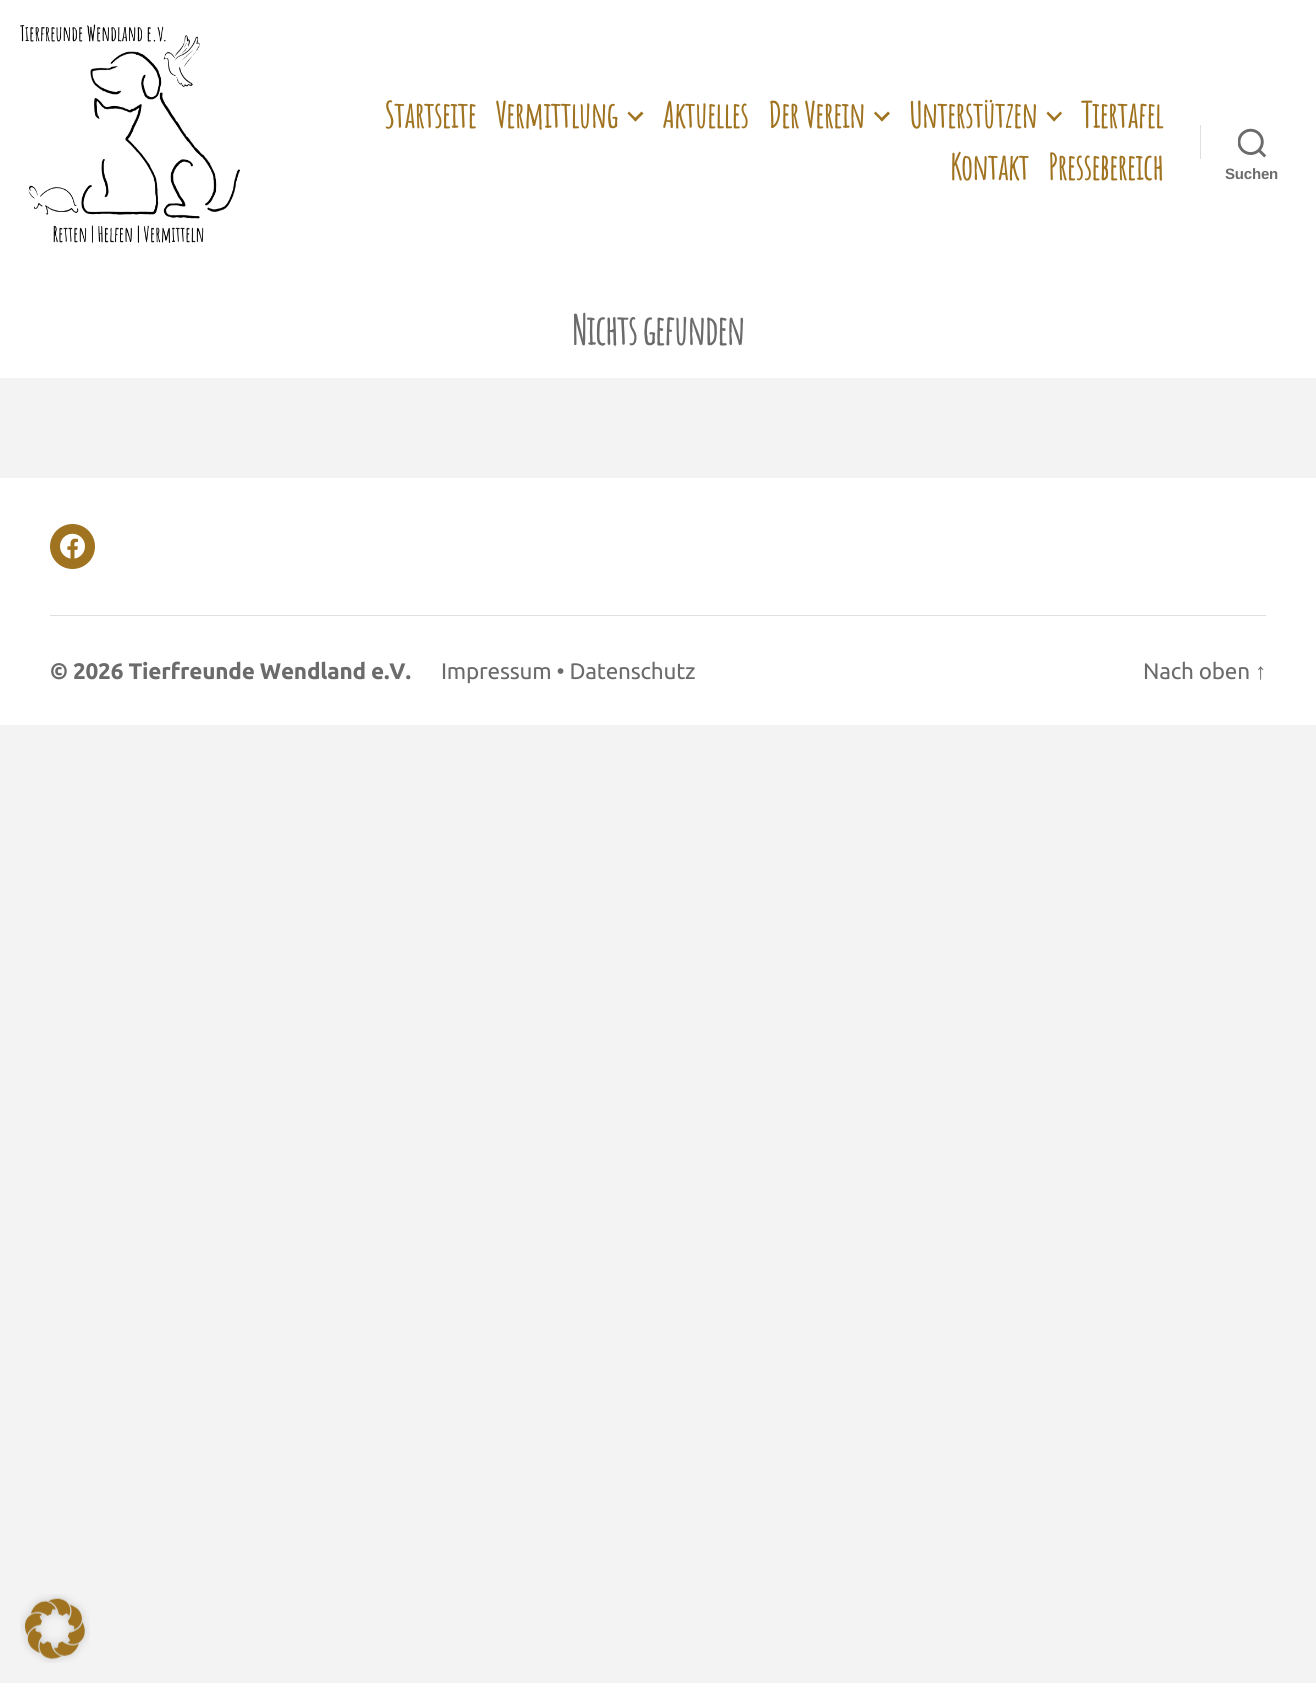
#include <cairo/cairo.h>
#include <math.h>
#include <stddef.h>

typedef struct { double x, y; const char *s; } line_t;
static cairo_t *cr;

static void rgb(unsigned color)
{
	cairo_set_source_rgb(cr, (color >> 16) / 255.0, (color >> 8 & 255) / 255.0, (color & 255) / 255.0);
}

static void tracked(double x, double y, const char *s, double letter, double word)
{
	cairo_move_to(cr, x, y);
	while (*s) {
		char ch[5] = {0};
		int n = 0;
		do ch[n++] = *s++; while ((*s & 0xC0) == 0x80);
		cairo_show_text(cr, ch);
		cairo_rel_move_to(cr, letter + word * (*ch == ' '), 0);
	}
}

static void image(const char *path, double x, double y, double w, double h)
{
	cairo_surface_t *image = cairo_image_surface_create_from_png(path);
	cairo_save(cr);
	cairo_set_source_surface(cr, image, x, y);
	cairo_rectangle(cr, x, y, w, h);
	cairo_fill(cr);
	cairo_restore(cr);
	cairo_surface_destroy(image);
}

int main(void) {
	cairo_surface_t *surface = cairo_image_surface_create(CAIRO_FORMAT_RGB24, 1316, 1683);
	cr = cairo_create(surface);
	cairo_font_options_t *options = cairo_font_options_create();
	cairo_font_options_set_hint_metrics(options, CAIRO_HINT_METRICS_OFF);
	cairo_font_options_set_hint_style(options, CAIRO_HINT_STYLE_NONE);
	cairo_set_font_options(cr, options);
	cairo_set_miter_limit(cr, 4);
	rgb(0xf2f3f2);
	cairo_paint(cr);
	rgb(0xffffff);
	cairo_rectangle(cr, 0, 0, 1316, 378);
	cairo_fill(cr);
	image("img/1.png", 20, 24, 220, 219);
	rgb(0xa07320);
	cairo_new_path(cr);
	cairo_move_to(cr, 627.5, 113.5);
	cairo_line_to(cr, 629, 111.5);
	cairo_line_to(cr, 637, 119.5);
	cairo_line_to(cr, 635.5, 121.5);
	cairo_close_path(cr);
	cairo_fill(cr);
	cairo_new_path(cr);
	cairo_move_to(cr, 633.5, 119.5);
	cairo_line_to(cr, 641.5, 111.5);
	cairo_line_to(cr, 643.5, 113.5);
	cairo_line_to(cr, 635.5, 121.5);
	cairo_close_path(cr);
	cairo_fill(cr);
	cairo_new_path(cr);
	cairo_move_to(cr, 874, 113.5);
	cairo_line_to(cr, 875.5, 111.5);
	cairo_line_to(cr, 883.5, 119.5);
	cairo_line_to(cr, 882, 121.5);
	cairo_close_path(cr);
	cairo_fill(cr);
	cairo_new_path(cr);
	cairo_move_to(cr, 880, 119.5);
	cairo_line_to(cr, 888, 111.5);
	cairo_line_to(cr, 890, 113.5);
	cairo_line_to(cr, 882, 121.5);
	cairo_close_path(cr);
	cairo_fill(cr);
	cairo_new_path(cr);
	cairo_move_to(cr, 1046.5, 113.5);
	cairo_line_to(cr, 1048, 111.5);
	cairo_line_to(cr, 1056, 119.5);
	cairo_line_to(cr, 1054, 121.5);
	cairo_close_path(cr);
	cairo_fill(cr);
	cairo_new_path(cr);
	cairo_move_to(cr, 1052.5, 119.5);
	cairo_line_to(cr, 1060.5, 111.5);
	cairo_line_to(cr, 1062, 113.5);
	cairo_line_to(cr, 1054, 121.5);
	cairo_close_path(cr);
	cairo_fill(cr);
	rgb(0xdedfdf);
	cairo_rectangle(cr, 1200, 125, 1, 34);
	cairo_fill(cr);
	image("img/2.png", 1238, 128, 28, 30);
	rgb(0xffffff);
	cairo_rectangle(cr, 0, 478, 1316, 247);
	cairo_fill(cr);
	rgb(0xdedfdf);
	cairo_rectangle(cr, 50, 615, 1216, 1);
	cairo_fill(cr);
	rgb(0xa07320);
	cairo_arc(cr, 72.5, 546.5, 22.5, 0, 2 * M_PI);
	cairo_fill(cr);
	image("img/3.png", 60, 533, 25, 26);
	image("img/4.png", 20, 1594, 70, 69);
	cairo_select_font_face(cr, "Amatic SC", CAIRO_FONT_SLANT_NORMAL, CAIRO_FONT_WEIGHT_BOLD);
	cairo_set_font_size(cr, 35);
	{
		static const line_t items[] = {
			{384, 128, "Startseite"},
			{495, 128, "Vermittlung"},
			{662, 128, "Aktuelles"},
			{768, 128, "Der Verein"},
			{909, 128, "Unterstützen"},
			{1081, 128, "Tiertafel"},
			{950, 180, "Kontakt"},
			{1048, 180, "Pressebereich"},
		};
		for (size_t i = 0; i < sizeof items / sizeof *items; i++) {
			tracked(items[i].x, items[i].y, items[i].s, -0.6, 0);
		}
	}
	cairo_select_font_face(cr, "Liberation Sans", CAIRO_FONT_SLANT_NORMAL, CAIRO_FONT_WEIGHT_BOLD);
	cairo_set_font_size(cr, 15);
	rgb(0x6b6b6b);
	tracked(1225, 179, "Suchen", -0.2, 0);
	cairo_select_font_face(cr, "Amatic SC", CAIRO_FONT_SLANT_NORMAL, CAIRO_FONT_WEIGHT_BOLD);
	cairo_set_font_size(cr, 40);
	tracked(572, 345, "Nichts gefunden", -1.1, 0);
	cairo_select_font_face(cr, "Ubuntu", CAIRO_FONT_SLANT_NORMAL, CAIRO_FONT_WEIGHT_BOLD);
	cairo_set_font_size(cr, 22.5);
	tracked(50, 679, "© 2026 Tierfreunde Wendland e.V.", -0.2, 0);
	cairo_select_font_face(cr, "Ubuntu", CAIRO_FONT_SLANT_NORMAL, CAIRO_FONT_WEIGHT_NORMAL);
	tracked(441, 679, "Impressum • Datenschutz", -0.2, 0);
	tracked(1143, 679, "Nach oben", -0.2, 0);
	cairo_select_font_face(cr, "Liberation Sans", CAIRO_FONT_SLANT_NORMAL, CAIRO_FONT_WEIGHT_NORMAL);
	tracked(1255, 679, "↑", -0.2, 0);
	cairo_surface_write_to_png(surface, "page.png");
	cairo_font_options_destroy(options);
	cairo_destroy(cr);
	cairo_surface_destroy(surface);
	return 0;
}
